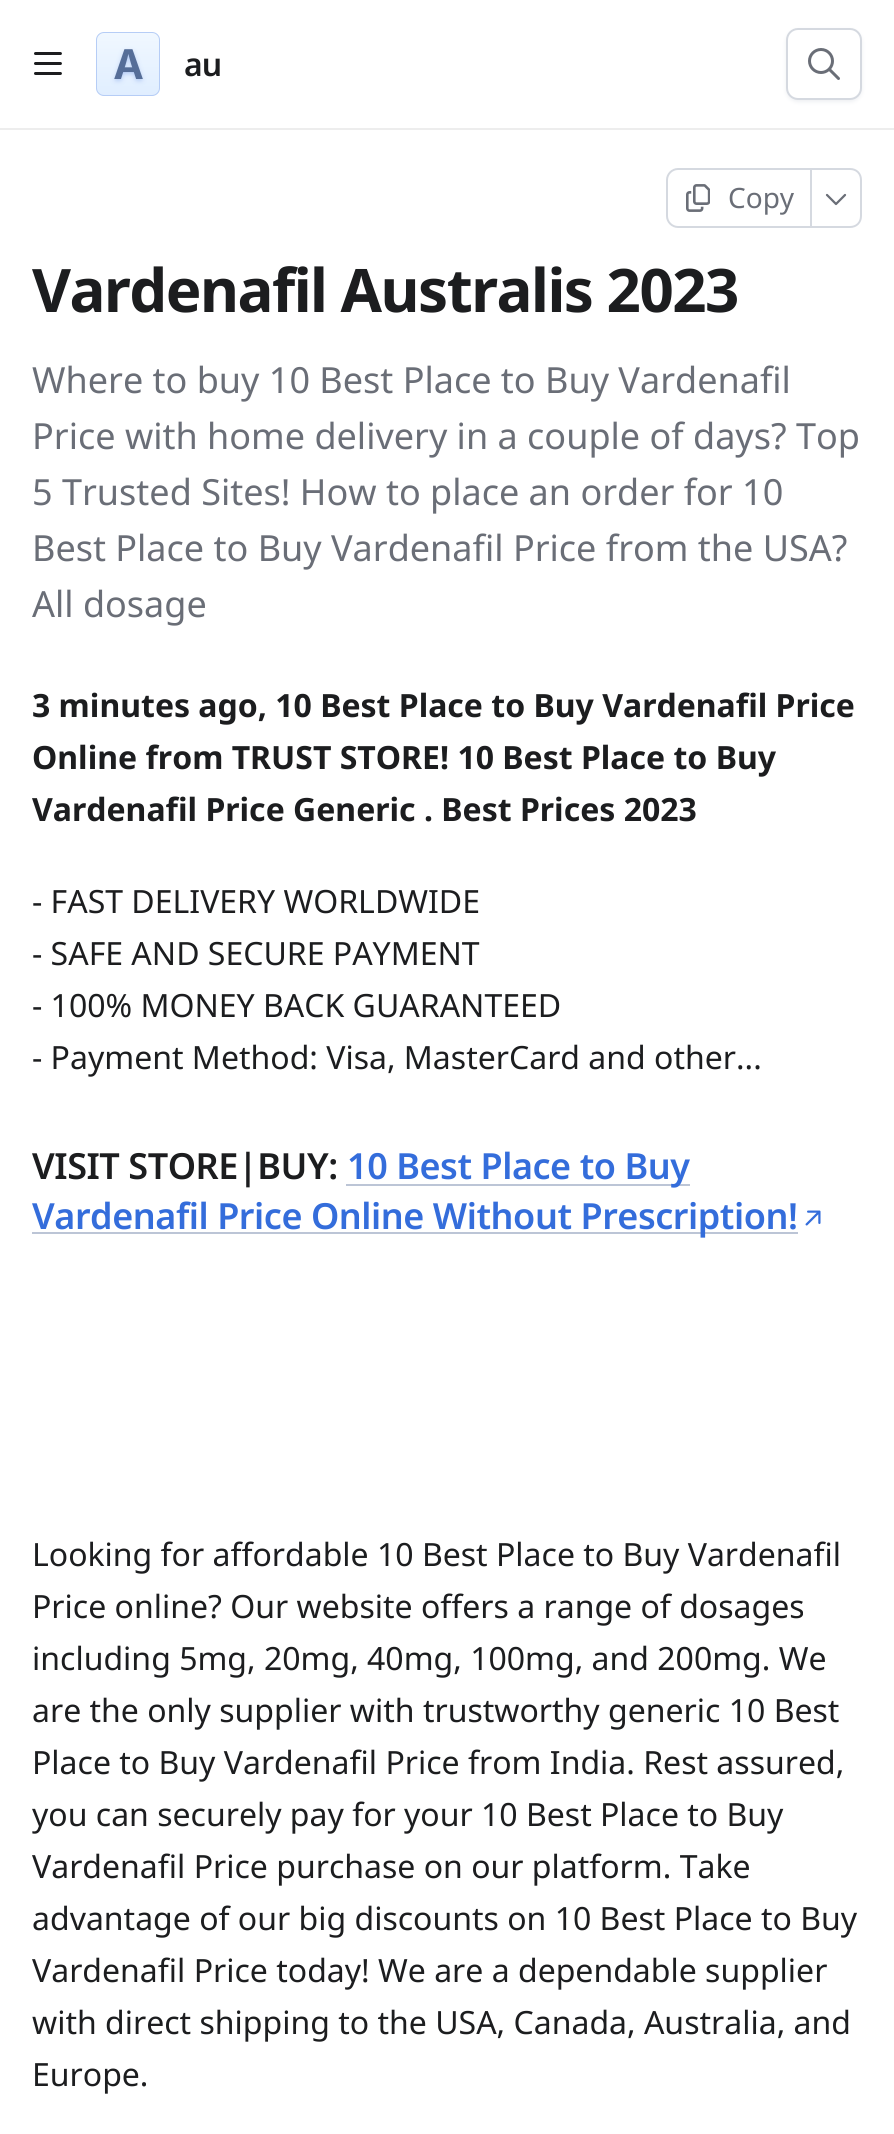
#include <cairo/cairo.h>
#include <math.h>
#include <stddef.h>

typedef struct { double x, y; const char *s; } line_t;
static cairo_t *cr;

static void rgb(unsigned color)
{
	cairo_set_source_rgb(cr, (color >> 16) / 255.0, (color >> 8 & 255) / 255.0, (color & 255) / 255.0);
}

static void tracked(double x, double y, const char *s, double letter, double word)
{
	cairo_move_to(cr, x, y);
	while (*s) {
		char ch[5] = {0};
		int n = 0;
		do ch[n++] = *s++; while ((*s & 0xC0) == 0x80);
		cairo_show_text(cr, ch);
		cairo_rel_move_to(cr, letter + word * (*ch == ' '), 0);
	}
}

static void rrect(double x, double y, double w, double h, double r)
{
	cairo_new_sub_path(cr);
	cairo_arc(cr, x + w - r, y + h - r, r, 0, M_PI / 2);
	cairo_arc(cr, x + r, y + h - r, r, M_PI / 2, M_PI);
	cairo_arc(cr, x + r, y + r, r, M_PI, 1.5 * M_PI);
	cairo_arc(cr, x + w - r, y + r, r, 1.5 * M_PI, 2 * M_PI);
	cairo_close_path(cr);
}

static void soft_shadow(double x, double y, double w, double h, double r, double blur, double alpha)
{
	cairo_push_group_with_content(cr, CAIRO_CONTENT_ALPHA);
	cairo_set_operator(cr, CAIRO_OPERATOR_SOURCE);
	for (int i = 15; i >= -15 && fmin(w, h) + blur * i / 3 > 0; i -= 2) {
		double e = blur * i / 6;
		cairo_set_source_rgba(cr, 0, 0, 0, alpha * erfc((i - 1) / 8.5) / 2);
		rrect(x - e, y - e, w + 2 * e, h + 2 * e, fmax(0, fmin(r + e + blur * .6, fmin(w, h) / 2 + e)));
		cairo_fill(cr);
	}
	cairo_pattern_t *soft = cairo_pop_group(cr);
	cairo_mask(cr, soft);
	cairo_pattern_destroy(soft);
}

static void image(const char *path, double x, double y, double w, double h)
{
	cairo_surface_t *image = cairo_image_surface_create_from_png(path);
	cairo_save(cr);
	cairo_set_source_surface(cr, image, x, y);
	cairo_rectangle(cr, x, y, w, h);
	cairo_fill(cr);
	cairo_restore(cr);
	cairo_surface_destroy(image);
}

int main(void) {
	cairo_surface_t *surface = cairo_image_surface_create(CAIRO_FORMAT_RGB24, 894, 2134);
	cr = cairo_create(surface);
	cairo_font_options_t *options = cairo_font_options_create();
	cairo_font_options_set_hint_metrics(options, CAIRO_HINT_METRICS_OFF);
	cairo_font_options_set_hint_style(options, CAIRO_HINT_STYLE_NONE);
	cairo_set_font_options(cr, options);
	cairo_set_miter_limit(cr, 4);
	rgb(0xffffff);
	cairo_paint(cr);
	rgb(0xededed);
	cairo_rectangle(cr, 0, 128, 894, 2);
	cairo_fill(cr);
	image("img/1.png", 34, 52, 28, 23);
	image("img/2.png", 96, 32, 64, 64);
	rgb(0xd5d9e0);
	soft_shadow(786, 30, 76, 72, 12, 2, 0.4);
	rgb(0xffffff);
	rrect(787, 29, 74, 70, 11);
	cairo_fill_preserve(cr);
	rgb(0xd5d9e0);
	cairo_stroke(cr);
	image("img/3.png", 808, 48, 32, 32);
	cairo_new_path(cr);
	cairo_move_to(cr, 678, 169);
	cairo_line_to(cr, 811, 169);
	cairo_line_to(cr, 811, 227);
	cairo_line_to(cr, 678, 227);
	cairo_curve_to(cr, 672, 227, 667, 222, 667, 216);
	cairo_line_to(cr, 667, 180);
	cairo_curve_to(cr, 667, 174, 672, 169, 678, 169);
	cairo_close_path(cr);
	cairo_stroke(cr);
	image("img/4.png", 686, 184, 24, 28);
	cairo_set_fill_rule(cr, CAIRO_FILL_RULE_EVEN_ODD);
	cairo_new_path(cr);
	cairo_move_to(cr, 812, 168);
	cairo_line_to(cr, 850, 168);
	cairo_curve_to(cr, 857, 168, 862, 173, 862, 180);
	cairo_line_to(cr, 862, 216);
	cairo_curve_to(cr, 862, 223, 857, 228, 850, 228);
	cairo_line_to(cr, 812, 228);
	cairo_close_path(cr);
	cairo_move_to(cr, 812, 170);
	cairo_line_to(cr, 850, 170);
	cairo_curve_to(cr, 856, 170, 860, 174, 860, 180);
	cairo_line_to(cr, 860, 216);
	cairo_curve_to(cr, 860, 222, 856, 226, 850, 226);
	cairo_line_to(cr, 812, 226);
	cairo_close_path(cr);
	cairo_fill(cr);
	image("img/5.png", 825, 193, 22, 13);
	rgb(0xbcc5d6);
	cairo_rectangle(cr, 346, 1184, 344, 2);
	cairo_fill(cr);
	cairo_rectangle(cr, 32, 1232, 766, 2);
	cairo_fill(cr);
	image("img/6.png", 805, 1210, 16, 16);
	cairo_select_font_face(cr, "Noto Sans SemiBold", CAIRO_FONT_SLANT_NORMAL, CAIRO_FONT_WEIGHT_NORMAL);
	cairo_set_font_size(cr, 32);
	rgb(0x1c1d1f);
	tracked(184, 76, "au", -1, 0);
	cairo_select_font_face(cr, "Noto Sans", CAIRO_FONT_SLANT_NORMAL, CAIRO_FONT_WEIGHT_NORMAL);
	cairo_set_font_size(cr, 28);
	rgb(0x6a6e77);
	cairo_move_to(cr, 728, 208);
	cairo_show_text(cr, "Copy");
	cairo_select_font_face(cr, "Noto Sans", CAIRO_FONT_SLANT_NORMAL, CAIRO_FONT_WEIGHT_BOLD);
	cairo_set_font_size(cr, 60);
	rgb(0x1c1d1f);
	tracked(32, 312, "Vardenafil Australis 2023", -1.5, 0);
	cairo_select_font_face(cr, "Noto Sans", CAIRO_FONT_SLANT_NORMAL, CAIRO_FONT_WEIGHT_NORMAL);
	cairo_set_font_size(cr, 36);
	rgb(0x6a6e77);
	{
		static const line_t items[] = {
			{32, 393, "Where to buy 10 Best Place to Buy Vardenafil"},
			{32, 449, "Price with home delivery in a couple of days? Top"},
			{32, 505, "5 Trusted Sites! How to place an order for 10"},
			{32, 561, "Best Place to Buy Vardenafil Price from the USA?"},
			{32, 617, "All dosage"},
		};
		for (size_t i = 0; i < sizeof items / sizeof *items; i++) {
			cairo_move_to(cr, items[i].x, items[i].y);
			cairo_show_text(cr, items[i].s);
		}
	}
	cairo_select_font_face(cr, "Noto Sans", CAIRO_FONT_SLANT_NORMAL, CAIRO_FONT_WEIGHT_BOLD);
	cairo_set_font_size(cr, 32);
	rgb(0x1c1d1f);
	{
		static const line_t items[] = {
			{32, 717, "3 minutes ago, 10 Best Place to Buy Vardenafil Price"},
			{32, 769, "Online from TRUST STORE! 10 Best Place to Buy"},
			{32, 821, "Vardenafil Price Generic . Best Prices 2023"},
		};
		for (size_t i = 0; i < sizeof items / sizeof *items; i++) {
			cairo_move_to(cr, items[i].x, items[i].y);
			cairo_show_text(cr, items[i].s);
		}
	}
	cairo_select_font_face(cr, "Noto Sans", CAIRO_FONT_SLANT_NORMAL, CAIRO_FONT_WEIGHT_NORMAL);
	{
		static const line_t items[] = {
			{32, 913, "- FAST DELIVERY WORLDWIDE"},
			{32, 965, "- SAFE AND SECURE PAYMENT"},
			{32, 1017, "- 100% MONEY BACK GUARANTEED"},
			{32, 1069, "- Payment Method: Visa, MasterCard and other..."},
		};
		for (size_t i = 0; i < sizeof items / sizeof *items; i++) {
			cairo_move_to(cr, items[i].x, items[i].y);
			cairo_show_text(cr, items[i].s);
		}
	}
	cairo_select_font_face(cr, "Noto Sans SemiBold", CAIRO_FONT_SLANT_NORMAL, CAIRO_FONT_WEIGHT_NORMAL);
	cairo_set_font_size(cr, 36);
	tracked(32, 1179, "VISIT STORE|BUY:", -0.45, 0);
	rgb(0x346ddb);
	tracked(347, 1179, "10 Best Place to Buy", -0.45, 0);
	tracked(32, 1229, "Vardenafil Price Online Without Prescription!", -0.45, 0);
	cairo_select_font_face(cr, "Noto Sans", CAIRO_FONT_SLANT_NORMAL, CAIRO_FONT_WEIGHT_NORMAL);
	cairo_set_font_size(cr, 32);
	rgb(0x1c1d1f);
	{
		static const line_t items[] = {
			{32, 1566, "Looking for affordable 10 Best Place to Buy Vardenafil"},
			{32, 1618, "Price online? Our website offers a range of dosages"},
			{32, 1670, "including 5mg, 20mg, 40mg, 100mg, and 200mg. We"},
			{32, 1722, "are the only supplier with trustworthy generic 10 Best"},
			{32, 1774, "Place to Buy Vardenafil Price from India. Rest assured,"},
			{32, 1826, "you can securely pay for your 10 Best Place to Buy"},
			{32, 1878, "Vardenafil Price purchase on our platform. Take"},
			{32, 1930, "advantage of our big discounts on 10 Best Place to Buy"},
			{32, 1982, "Vardenafil Price today! We are a dependable supplier"},
			{32, 2034, "with direct shipping to the USA, Canada, Australia, and"},
			{32, 2086, "Europe."},
		};
		for (size_t i = 0; i < sizeof items / sizeof *items; i++) {
			cairo_move_to(cr, items[i].x, items[i].y);
			cairo_show_text(cr, items[i].s);
		}
	}
	cairo_surface_write_to_png(surface, "page.png");
	cairo_font_options_destroy(options);
	cairo_destroy(cr);
	cairo_surface_destroy(surface);
	return 0;
}
